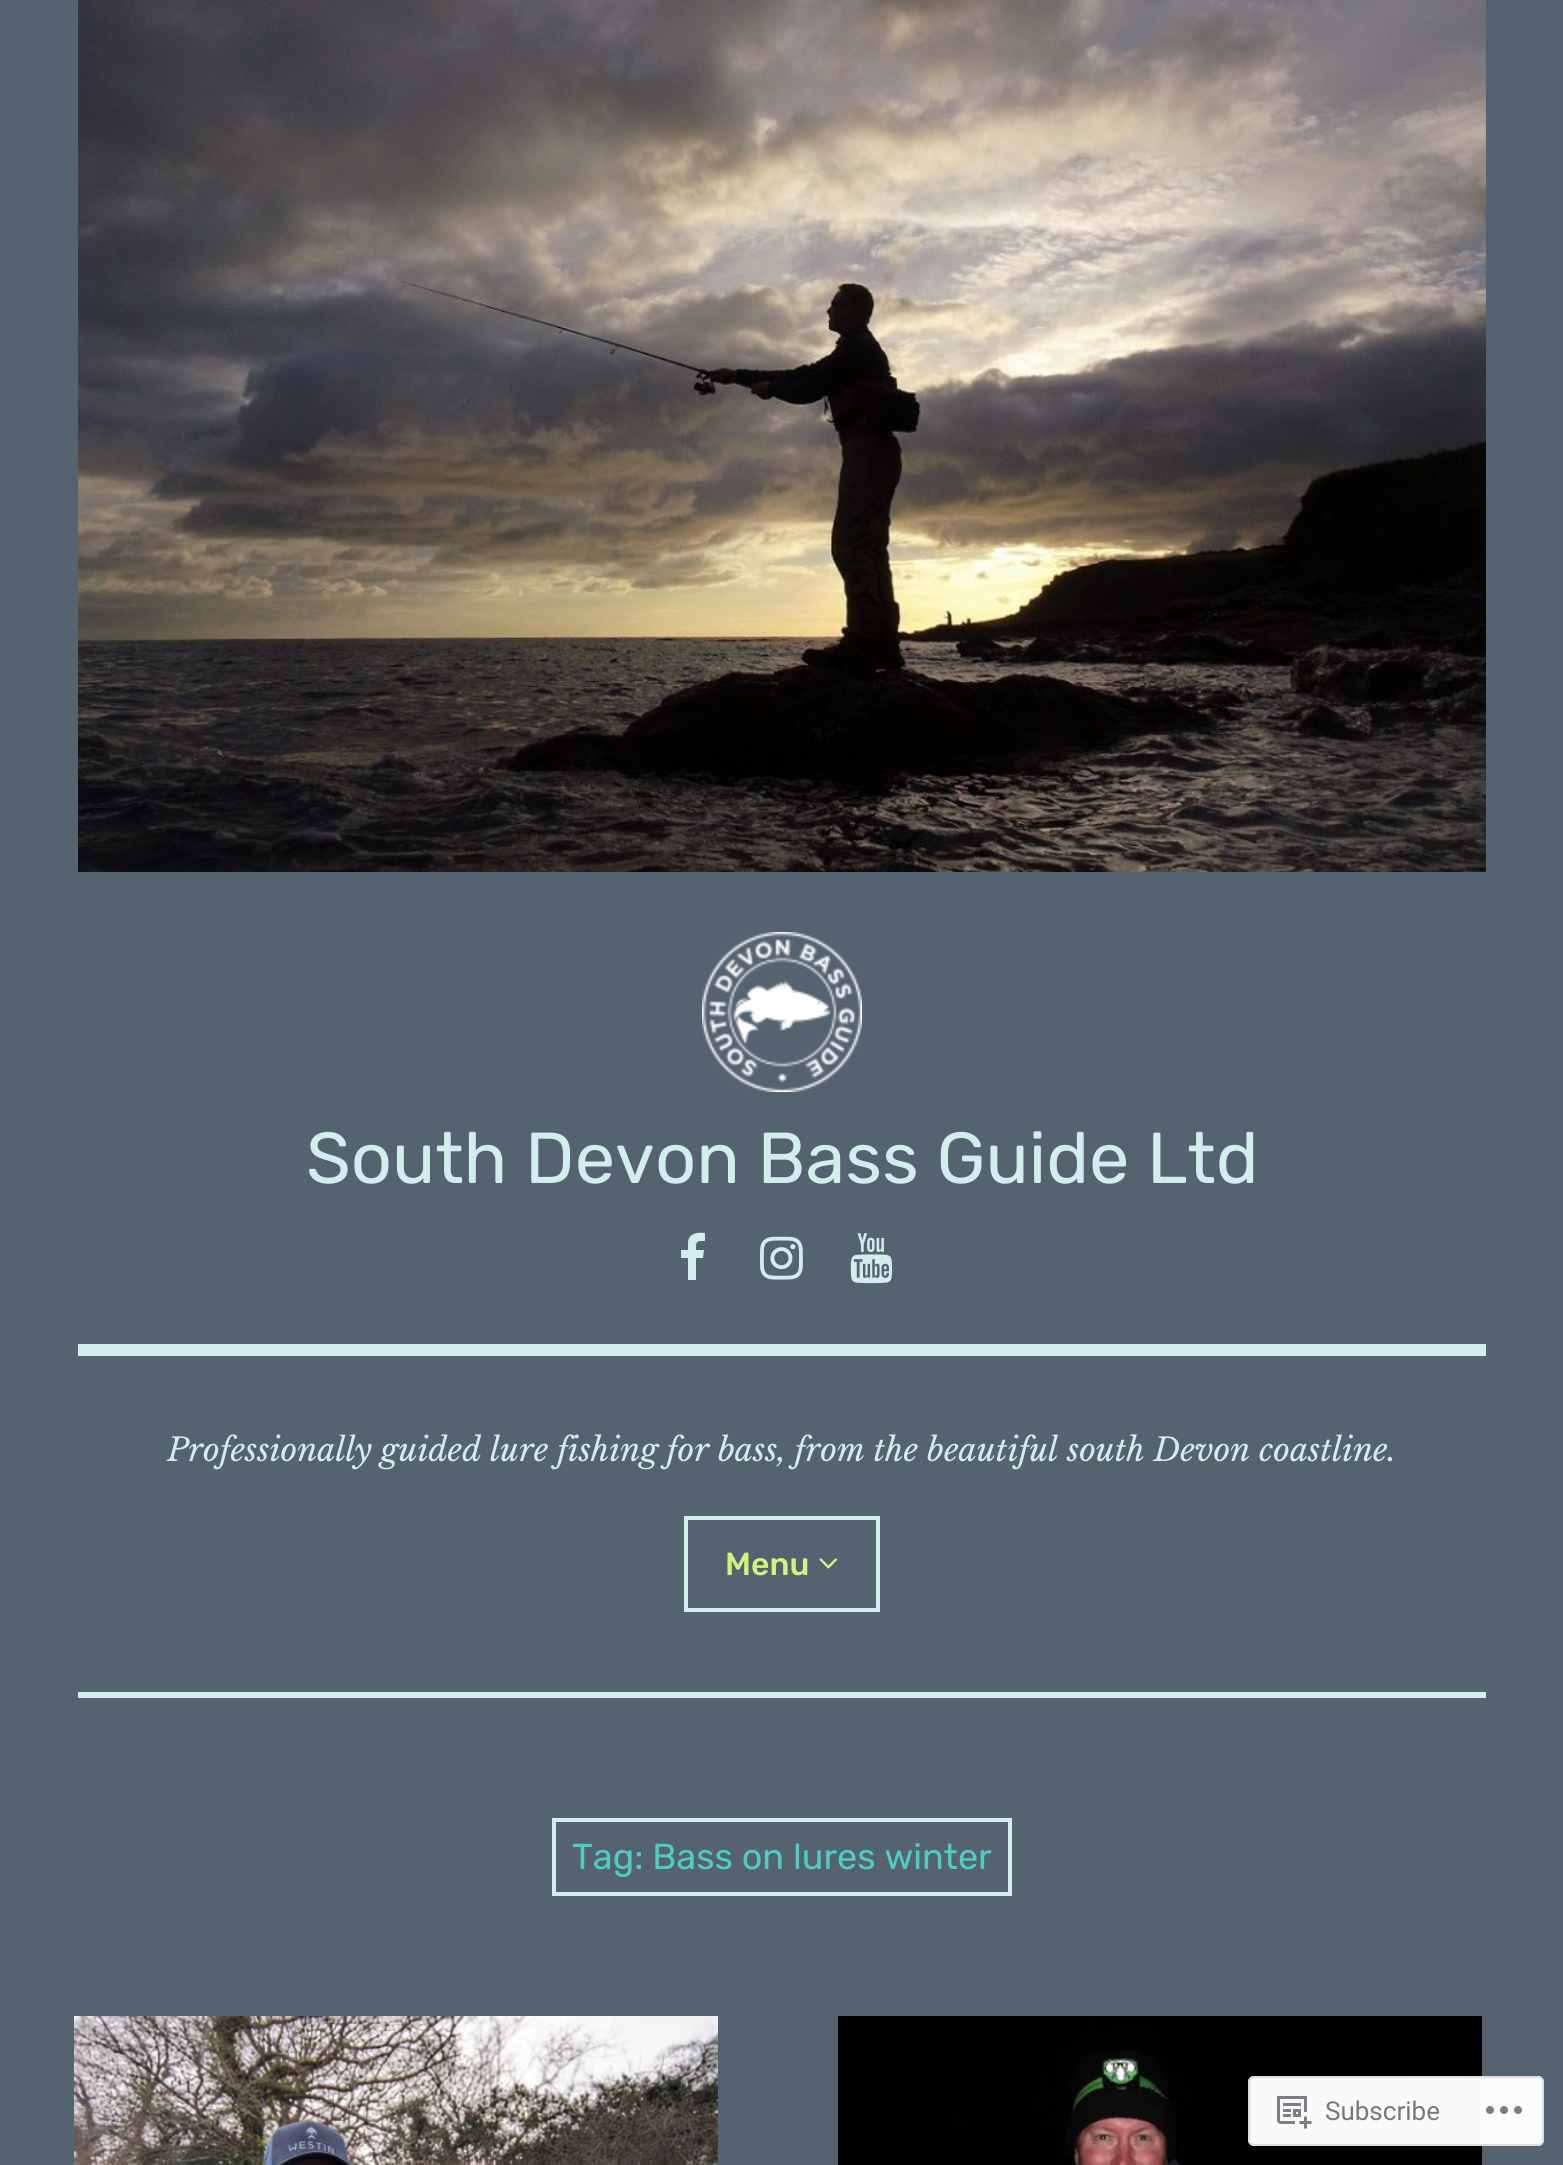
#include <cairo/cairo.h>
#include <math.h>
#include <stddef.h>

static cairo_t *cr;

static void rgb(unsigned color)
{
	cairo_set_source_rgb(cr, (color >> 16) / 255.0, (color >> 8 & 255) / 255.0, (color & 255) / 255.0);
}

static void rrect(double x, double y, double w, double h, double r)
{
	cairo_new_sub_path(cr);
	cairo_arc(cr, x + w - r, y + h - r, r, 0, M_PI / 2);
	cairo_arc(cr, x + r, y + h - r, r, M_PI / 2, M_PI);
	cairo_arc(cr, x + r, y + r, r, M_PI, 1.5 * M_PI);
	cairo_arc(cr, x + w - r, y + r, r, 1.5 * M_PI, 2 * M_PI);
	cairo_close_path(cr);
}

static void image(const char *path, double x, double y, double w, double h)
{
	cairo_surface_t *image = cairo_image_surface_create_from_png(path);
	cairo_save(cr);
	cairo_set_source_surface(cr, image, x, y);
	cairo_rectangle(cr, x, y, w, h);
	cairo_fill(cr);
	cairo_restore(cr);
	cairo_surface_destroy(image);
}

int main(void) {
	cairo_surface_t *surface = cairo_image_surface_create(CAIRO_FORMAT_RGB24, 1563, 2165);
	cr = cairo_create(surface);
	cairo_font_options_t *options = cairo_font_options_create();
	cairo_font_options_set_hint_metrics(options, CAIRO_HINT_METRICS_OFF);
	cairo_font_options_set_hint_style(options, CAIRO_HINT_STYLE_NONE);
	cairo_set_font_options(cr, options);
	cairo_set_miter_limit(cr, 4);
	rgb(0x556270);
	cairo_paint(cr);
	image("img/1.png", 78, 0, 1408, 872);
	rgb(0xd2edec);
	cairo_rectangle(cr, 78, 1344, 1408, 12);
	cairo_fill(cr);
	image("img/2.png", 702, 932, 160, 160);
	cairo_new_path(cr);
	cairo_move_to(cr, 705, 1233);
	cairo_line_to(cr, 705, 1241);
	cairo_curve_to(cr, 696, 1241, 696, 1241, 696, 1250);
	cairo_line_to(cr, 704, 1250);
	cairo_line_to(cr, 703, 1258);
	cairo_line_to(cr, 696, 1258);
	cairo_line_to(cr, 696, 1280);
	cairo_line_to(cr, 688, 1280);
	cairo_line_to(cr, 688, 1258);
	cairo_line_to(cr, 681, 1258);
	cairo_line_to(cr, 681, 1250);
	cairo_line_to(cr, 688, 1250);
	cairo_line_to(cr, 688, 1242);
	cairo_curve_to(cr, 689, 1233, 698, 1232, 705, 1233);
	cairo_close_path(cr);
	cairo_fill(cr);
	image("img/3.png", 760, 1236, 43, 44);
	image("img/4.png", 850, 1233, 43, 51);
	cairo_rectangle(cr, 686, 1518, 192, 92);
	cairo_set_line_width(cr, 4);
	cairo_stroke(cr);
	image("img/5.png", 819, 1558, 19, 11);
	cairo_rectangle(cr, 78, 1692, 1408, 6);
	cairo_fill(cr);
	cairo_rectangle(cr, 554, 1820, 456, 74);
	cairo_stroke(cr);
	image("img/6.png", 74, 2016, 644, 149);
	image("img/7.png", 838, 2016, 644, 149);
	cairo_set_source_rgba(cr, 1, 1, 1, 0.98);
	rrect(1248, 2076, 296, 70, 6);
	cairo_fill(cr);
	rrect(1249, 2077, 294, 68, 5);
	cairo_set_source_rgba(cr, 0.863, 0.863, 0.871, 0.98);
	cairo_set_line_width(cr, 2);
	cairo_stroke(cr);
	image("img/8.png", 1277, 2096, 35, 33);
	image("img/9.png", 1486, 2106, 36, 8);
	cairo_select_font_face(cr, "Rubik", CAIRO_FONT_SLANT_NORMAL, CAIRO_FONT_WEIGHT_NORMAL);
	cairo_set_font_size(cr, 72);
	rgb(0xd2edec);
	cairo_move_to(cr, 306, 1183);
	cairo_show_text(cr, "South Devon Bass Guide Ltd");
	cairo_select_font_face(cr, "Libre Baskerville", CAIRO_FONT_SLANT_ITALIC, CAIRO_FONT_WEIGHT_NORMAL);
	cairo_set_font_size(cr, 32);
	cairo_move_to(cr, 167, 1461);
	cairo_show_text(cr, "Professionally guided lure fishing for bass, from the beautiful south Devon coastline.");
	cairo_select_font_face(cr, "Rubik Medium", CAIRO_FONT_SLANT_NORMAL, CAIRO_FONT_WEIGHT_NORMAL);
	rgb(0xcff47f);
	cairo_move_to(cr, 725, 1575);
	cairo_show_text(cr, "Menu");
	cairo_select_font_face(cr, "Rubik", CAIRO_FONT_SLANT_NORMAL, CAIRO_FONT_WEIGHT_NORMAL);
	cairo_set_font_size(cr, 36);
	rgb(0x4ecdc4);
	cairo_move_to(cr, 572, 1869);
	cairo_show_text(cr, "Tag: Bass on lures winter");
	cairo_select_font_face(cr, "Roboto", CAIRO_FONT_SLANT_NORMAL, CAIRO_FONT_WEIGHT_NORMAL);
	cairo_set_font_size(cr, 26);
	rgb(0x767a7f);
	cairo_move_to(cr, 1325, 2120);
	cairo_show_text(cr, "Subscribe");
	cairo_surface_write_to_png(surface, "page.png");
	cairo_font_options_destroy(options);
	cairo_destroy(cr);
	cairo_surface_destroy(surface);
	return 0;
}
